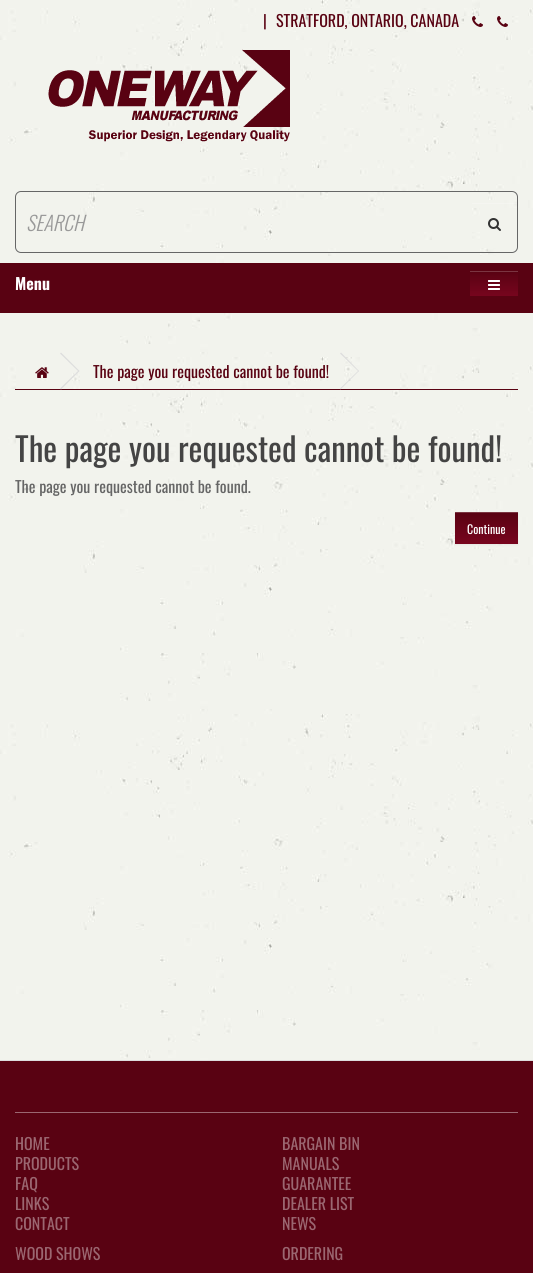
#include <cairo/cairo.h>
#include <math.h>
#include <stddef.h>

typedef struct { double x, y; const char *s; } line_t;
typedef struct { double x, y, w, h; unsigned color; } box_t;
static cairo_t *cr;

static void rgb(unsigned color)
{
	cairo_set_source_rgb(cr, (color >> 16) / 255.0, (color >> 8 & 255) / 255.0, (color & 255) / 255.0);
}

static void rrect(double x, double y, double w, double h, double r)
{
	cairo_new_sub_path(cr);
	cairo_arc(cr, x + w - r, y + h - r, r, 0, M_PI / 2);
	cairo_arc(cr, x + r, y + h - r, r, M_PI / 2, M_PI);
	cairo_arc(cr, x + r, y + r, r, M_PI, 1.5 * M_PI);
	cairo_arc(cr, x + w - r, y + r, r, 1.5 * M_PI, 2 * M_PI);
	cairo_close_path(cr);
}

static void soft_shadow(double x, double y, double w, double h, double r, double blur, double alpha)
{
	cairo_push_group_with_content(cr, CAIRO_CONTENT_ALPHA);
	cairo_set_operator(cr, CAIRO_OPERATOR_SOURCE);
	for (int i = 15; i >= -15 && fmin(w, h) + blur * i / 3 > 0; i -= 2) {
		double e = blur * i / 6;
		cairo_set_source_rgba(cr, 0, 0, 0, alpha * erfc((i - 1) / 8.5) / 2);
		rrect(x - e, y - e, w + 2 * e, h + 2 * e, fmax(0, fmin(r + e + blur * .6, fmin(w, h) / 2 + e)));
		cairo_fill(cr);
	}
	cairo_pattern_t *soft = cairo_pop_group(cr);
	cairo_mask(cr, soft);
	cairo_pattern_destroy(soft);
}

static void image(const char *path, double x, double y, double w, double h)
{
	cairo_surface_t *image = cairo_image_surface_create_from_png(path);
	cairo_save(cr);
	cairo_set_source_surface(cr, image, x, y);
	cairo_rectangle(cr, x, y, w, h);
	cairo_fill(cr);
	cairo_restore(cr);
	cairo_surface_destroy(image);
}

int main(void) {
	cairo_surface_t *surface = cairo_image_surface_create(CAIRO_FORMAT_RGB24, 533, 1273);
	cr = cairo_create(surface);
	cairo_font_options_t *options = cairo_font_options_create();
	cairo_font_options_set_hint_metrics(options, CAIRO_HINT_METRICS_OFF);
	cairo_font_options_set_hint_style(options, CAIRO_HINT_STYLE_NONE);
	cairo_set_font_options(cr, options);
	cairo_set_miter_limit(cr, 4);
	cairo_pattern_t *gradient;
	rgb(0xffffff);
	cairo_paint(cr);
	image("img/1.png", 0, 0, 533, 1060);
	image("img/2.png", 472, 16, 11, 11);
	image("img/2.png", 497, 16, 11, 11);
	image("img/3.png", 48, 49, 242, 93);
	rrect(15.5, 191.5, 502, 61, 5.5);
	rgb(0x666666);
	cairo_set_line_width(cr, 1);
	cairo_stroke(cr);
	cairo_set_source_rgba(cr, 1, 1, 1, 0.2);
	cairo_rectangle(cr, 472, 203, 45, 1);
	cairo_fill(cr);
	image("img/4.png", 488, 218, 13, 13);
	rgb(0x590212);
	cairo_rectangle(cr, 0, 263, 533, 50);
	cairo_fill(cr);
	gradient = cairo_pattern_create_linear(494, 271, 494, 296);
	cairo_pattern_add_color_stop_rgba(gradient, 0, 0.349, 0.008, 0.071, 1);
	cairo_pattern_add_color_stop_rgba(gradient, 1, 0.467, 0.02, 0.118, 1);
	cairo_set_source(cr, gradient);
	cairo_pattern_destroy(gradient);
	cairo_rectangle(cr, 470, 273, 48, 23);
	cairo_fill(cr);
	rgb(0x7b3541);
	cairo_rectangle(cr, 470, 271, 48, 1);
	cairo_fill(cr);
	image("img/5.png", 488, 280, 12, 10);
	rgb(0x590212);
	cairo_rectangle(cr, 15, 389, 503, 1);
	cairo_fill(cr);
	image("img/6.png", 35, 367, 14, 11);
	rgb(0xdddddd);
	cairo_new_path(cr);
	cairo_move_to(cr, 60, 353.5);
	cairo_line_to(cr, 61, 352.5);
	cairo_line_to(cr, 79.5, 371);
	cairo_line_to(cr, 78.5, 371.5);
	cairo_close_path(cr);
	cairo_fill(cr);
	cairo_new_path(cr);
	cairo_move_to(cr, 60, 388.5);
	cairo_line_to(cr, 78.5, 370.5);
	cairo_line_to(cr, 79.5, 371);
	cairo_line_to(cr, 61, 389.5);
	cairo_close_path(cr);
	cairo_fill(cr);
	cairo_new_path(cr);
	cairo_move_to(cr, 340, 353.5);
	cairo_line_to(cr, 341, 352.5);
	cairo_line_to(cr, 359, 371);
	cairo_line_to(cr, 358.5, 371.5);
	cairo_close_path(cr);
	cairo_fill(cr);
	cairo_new_path(cr);
	cairo_move_to(cr, 340, 388.5);
	cairo_line_to(cr, 358.5, 370.5);
	cairo_line_to(cr, 359, 371);
	cairo_line_to(cr, 340.5, 389.5);
	cairo_close_path(cr);
	cairo_fill(cr);
	rgb(0x000000);
	soft_shadow(455, 513, 63, 32, 0, 1, 0.05);
	gradient = cairo_pattern_create_linear(487, 512, 487, 544);
	cairo_pattern_add_color_stop_rgba(gradient, 0, 0.349, 0.008, 0.071, 1);
	cairo_pattern_add_color_stop_rgba(gradient, 1, 0.467, 0.02, 0.118, 1);
	cairo_set_source(cr, gradient);
	cairo_pattern_destroy(gradient);
	cairo_rectangle(cr, 455, 513, 63, 31);
	cairo_fill(cr);
	{
		static const box_t items[] = {
			{455, 512, 63, 1, 0x7a3541},
			{0, 1061, 533, 212, 0x590212},
			{0, 1060, 533, 1, 0xdddddd},
			{15, 1112, 503, 1, 0x9b6771},
		};
		for (size_t i = 0; i < sizeof items / sizeof *items; i++) {
			rgb(items[i].color);
			cairo_rectangle(cr, items[i].x, items[i].y, items[i].w, items[i].h);
			cairo_fill(cr);
		}
	}
	cairo_select_font_face(cr, "Oswald", CAIRO_FONT_SLANT_NORMAL, CAIRO_FONT_WEIGHT_NORMAL);
	cairo_set_font_size(cr, 16);
	rgb(0x590212);
	cairo_move_to(cr, 263, 27);
	cairo_show_text(cr, "|");
	cairo_move_to(cr, 276, 27);
	cairo_show_text(cr, "STRATFORD, ONTARIO, CANADA");
	cairo_select_font_face(cr, "Oswald Light", CAIRO_FONT_SLANT_ITALIC, CAIRO_FONT_WEIGHT_NORMAL);
	cairo_set_font_size(cr, 20);
	rgb(0x999999);
	cairo_move_to(cr, 26, 231);
	cairo_show_text(cr, "SEARCH");
	cairo_select_font_face(cr, "Oswald", CAIRO_FONT_SLANT_NORMAL, CAIRO_FONT_WEIGHT_BOLD);
	cairo_set_font_size(cr, 16);
	rgb(0xffffff);
	cairo_move_to(cr, 15, 290);
	cairo_show_text(cr, "Menu");
	cairo_select_font_face(cr, "Oswald", CAIRO_FONT_SLANT_NORMAL, CAIRO_FONT_WEIGHT_NORMAL);
	rgb(0x590212);
	cairo_move_to(cr, 93, 378);
	cairo_show_text(cr, "The page you requested cannot be found!");
	cairo_set_font_size(cr, 33);
	rgb(0x444444);
	cairo_move_to(cr, 15, 462);
	cairo_show_text(cr, "The page you requested cannot be found!");
	cairo_set_font_size(cr, 16);
	rgb(0x666666);
	cairo_move_to(cr, 15, 493);
	cairo_show_text(cr, "The page you requested cannot be found.");
	cairo_set_font_size(cr, 12);
	rgb(0xffffff);
	cairo_move_to(cr, 467, 534);
	cairo_show_text(cr, "Continue");
	cairo_set_font_size(cr, 16);
	rgb(0x9b6771);
	{
		static const line_t items[] = {
			{15, 1150, "HOME"},
			{15, 1170, "PRODUCTS"},
			{15, 1190, "FAQ"},
			{15, 1210, "LINKS"},
			{15, 1230, "CONTACT"},
			{282, 1150, "BARGAIN BIN"},
			{282, 1170, "MANUALS"},
			{282, 1190, "GUARANTEE"},
			{282, 1210, "DEALER LIST"},
			{282, 1230, "NEWS"},
			{15, 1260, "WOOD SHOWS"},
			{282, 1260, "ORDERING"},
		};
		for (size_t i = 0; i < sizeof items / sizeof *items; i++) {
			cairo_move_to(cr, items[i].x, items[i].y);
			cairo_show_text(cr, items[i].s);
		}
	}
	cairo_surface_write_to_png(surface, "page.png");
	cairo_font_options_destroy(options);
	cairo_destroy(cr);
	cairo_surface_destroy(surface);
	return 0;
}
